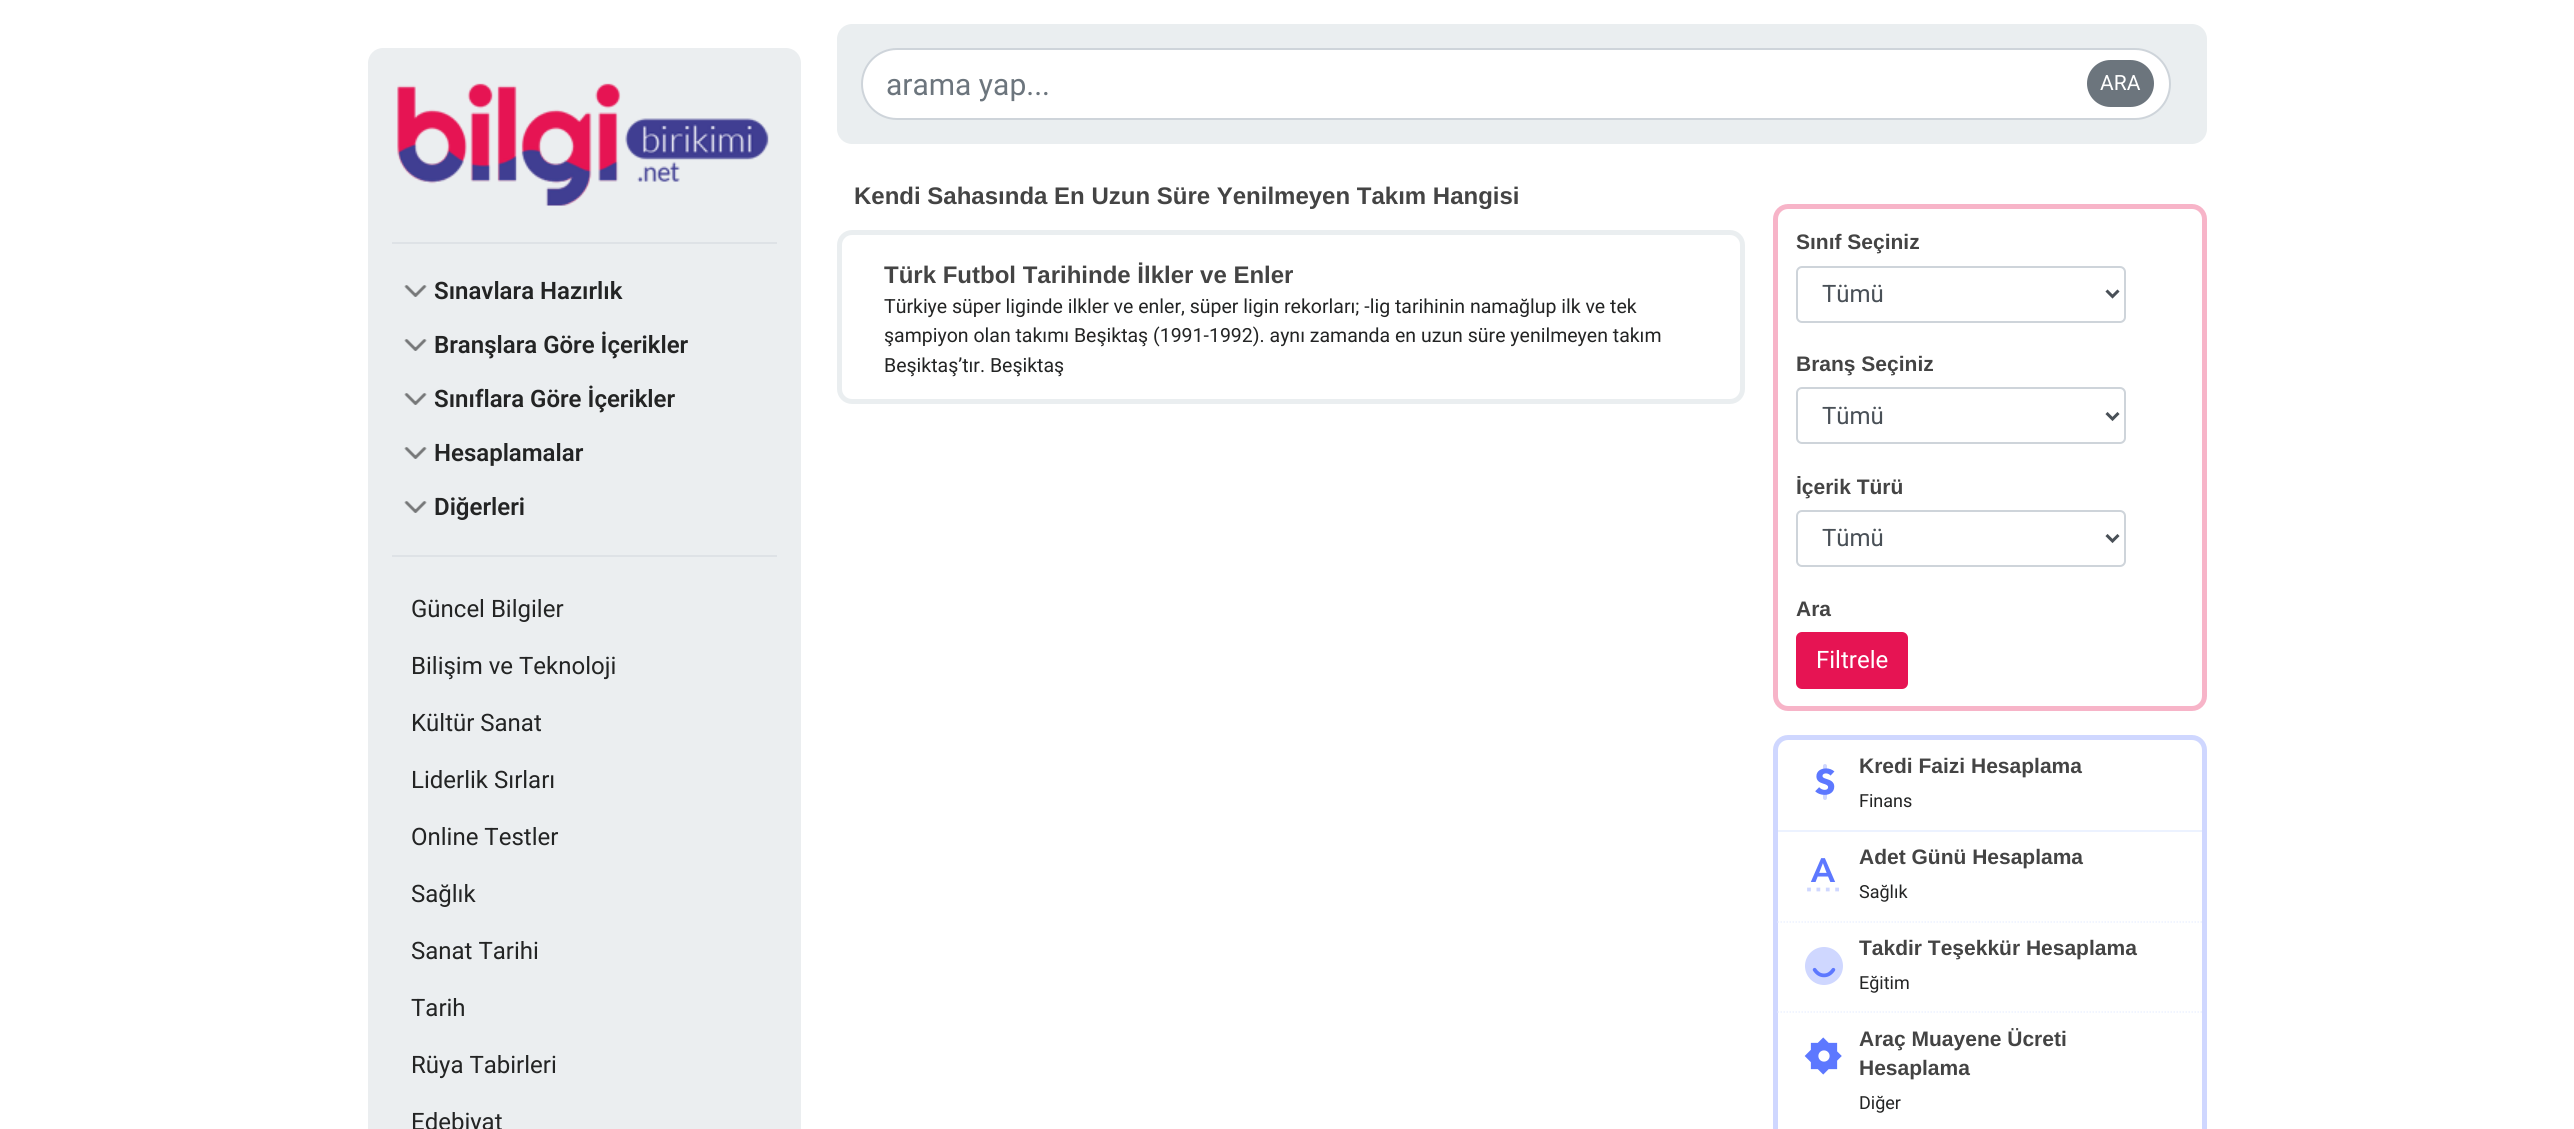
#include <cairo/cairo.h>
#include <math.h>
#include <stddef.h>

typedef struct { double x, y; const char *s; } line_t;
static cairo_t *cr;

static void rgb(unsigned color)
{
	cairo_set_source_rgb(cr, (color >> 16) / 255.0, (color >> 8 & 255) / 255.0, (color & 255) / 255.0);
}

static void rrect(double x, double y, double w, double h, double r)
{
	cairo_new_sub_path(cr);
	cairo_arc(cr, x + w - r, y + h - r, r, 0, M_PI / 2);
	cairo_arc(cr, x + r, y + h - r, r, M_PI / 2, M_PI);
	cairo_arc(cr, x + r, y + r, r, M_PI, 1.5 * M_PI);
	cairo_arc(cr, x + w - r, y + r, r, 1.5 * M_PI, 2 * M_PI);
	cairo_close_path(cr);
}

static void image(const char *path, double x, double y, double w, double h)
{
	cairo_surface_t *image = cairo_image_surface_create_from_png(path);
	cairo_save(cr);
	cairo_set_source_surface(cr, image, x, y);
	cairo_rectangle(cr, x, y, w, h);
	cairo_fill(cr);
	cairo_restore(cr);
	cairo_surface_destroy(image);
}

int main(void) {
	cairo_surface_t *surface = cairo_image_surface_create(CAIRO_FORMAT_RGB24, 2574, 1129);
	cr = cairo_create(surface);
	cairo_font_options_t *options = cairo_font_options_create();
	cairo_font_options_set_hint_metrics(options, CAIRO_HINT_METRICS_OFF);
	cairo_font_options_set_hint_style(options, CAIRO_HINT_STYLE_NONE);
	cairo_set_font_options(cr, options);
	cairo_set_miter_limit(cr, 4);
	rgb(0xffffff);
	cairo_paint(cr);
	rgb(0xebeef0);
	rrect(368, 48, 433, 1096, 15);
	cairo_fill(cr);
	rgb(0xdee2e6);
	cairo_rectangle(cr, 392, 242, 385, 2);
	cairo_fill(cr);
	image("img/1.png", 397, 83, 372, 123);
	image("img/2.png", 404, 285, 23, 12);
	image("img/2.png", 404, 339, 23, 12);
	image("img/2.png", 404, 393, 23, 12);
	image("img/2.png", 404, 447, 23, 12);
	image("img/2.png", 404, 501, 23, 12);
	cairo_rectangle(cr, 392, 555, 385, 2);
	cairo_fill(cr);
	rgb(0xeaeef0);
	rrect(837, 24, 1370, 120, 15);
	cairo_fill(cr);
	rgb(0xffffff);
	rrect(862, 49, 1308, 70, 35);
	cairo_fill_preserve(cr);
	rgb(0xced4da);
	cairo_stroke(cr);
	rgb(0x6c757d);
	rrect(2088, 61, 65, 45, 22.5);
	cairo_fill_preserve(cr);
	cairo_stroke(cr);
	rrect(839.5, 232.5, 903, 169, 12.5);
	rgb(0xeaeef0);
	cairo_set_line_width(cr, 5);
	cairo_stroke(cr);
	rrect(1775.5, 206.5, 429, 502, 12.5);
	rgb(0xf7b4c8);
	cairo_stroke(cr);
	rrect(1797, 267, 328, 55, 5);
	rgb(0xced4da);
	cairo_set_line_width(cr, 2);
	cairo_stroke(cr);
	cairo_new_path(cr);
	cairo_move_to(cr, 2106.5, 290.5);
	cairo_line_to(cr, 2112.5, 296.5);
	cairo_line_to(cr, 2118.5, 290.5);
	rgb(0x495057);
	cairo_set_line_width(cr, 3);
	cairo_stroke(cr);
	rrect(1797, 388, 328, 55, 5);
	rgb(0xced4da);
	cairo_set_line_width(cr, 2);
	cairo_stroke(cr);
	cairo_new_path(cr);
	cairo_move_to(cr, 2106.5, 413);
	cairo_line_to(cr, 2112.5, 419);
	cairo_line_to(cr, 2118.5, 413);
	rgb(0x495057);
	cairo_set_line_width(cr, 3);
	cairo_stroke(cr);
	rrect(1797, 511, 328, 55, 5);
	rgb(0xced4da);
	cairo_set_line_width(cr, 2);
	cairo_stroke(cr);
	cairo_new_path(cr);
	cairo_move_to(cr, 2106.5, 535);
	cairo_line_to(cr, 2112.5, 541);
	cairo_line_to(cr, 2118.5, 535);
	rgb(0x495057);
	cairo_set_line_width(cr, 3);
	cairo_stroke(cr);
	rgb(0xe61453);
	rrect(1796, 632, 112, 57, 6);
	cairo_fill(cr);
	rrect(1775.5, 737.5, 429, 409, 12.5);
	rgb(0xcfd7ff);
	cairo_set_line_width(cr, 5);
	cairo_stroke(cr);
	rgb(0xecf2ff);
	cairo_rectangle(cr, 1778, 830, 424, 2);
	cairo_fill(cr);
	image("img/3.png", 1815, 764, 20, 36);
	cairo_new_path(cr);
	cairo_move_to(cr, 1777.5, 922);
	cairo_line_to(cr, 2202, 922);
	cairo_set_line_width(cr, 1.5);
	cairo_set_dash(cr, (double[]){1.5, 1.5}, 2, 0);
	cairo_stroke(cr);
	image("img/4.png", 1807, 858, 32, 34);
	cairo_new_path(cr);
	cairo_move_to(cr, 1777.5, 1012);
	cairo_line_to(cr, 2202, 1012);
	cairo_stroke(cr);
	image("img/5.png", 1805, 947, 38, 38);
	image("img/6.png", 1804, 1037, 38, 38);
	cairo_select_font_face(cr, "Roboto SemiBold", CAIRO_FONT_SLANT_NORMAL, CAIRO_FONT_WEIGHT_NORMAL);
	cairo_set_font_size(cr, 24);
	rgb(0x232424);
	{
		static const line_t items[] = {
			{434, 299, "Sınavlara Hazırlık"},
			{434, 353, "Branşlara Göre İçerikler"},
			{434, 407, "Sınıflara Göre İçerikler"},
			{434, 461, "Hesaplamalar"},
			{434, 515, "Diğerleri"},
		};
		for (size_t i = 0; i < sizeof items / sizeof *items; i++) {
			cairo_move_to(cr, items[i].x, items[i].y);
			cairo_show_text(cr, items[i].s);
		}
	}
	cairo_select_font_face(cr, "Roboto", CAIRO_FONT_SLANT_NORMAL, CAIRO_FONT_WEIGHT_NORMAL);
	{
		static const line_t items[] = {
			{411, 617, "Güncel Bilgiler"},
			{411, 674, "Bilişim ve Teknoloji"},
			{411, 731, "Kültür Sanat"},
			{411, 788, "Liderlik Sırları"},
			{411, 845, "Online Testler"},
			{411, 902, "Sağlık"},
			{411, 959, "Sanat Tarihi"},
			{411, 1016, "Tarih"},
			{411, 1073, "Rüya Tabirleri"},
			{411, 1130, "Edebiyat"},
		};
		for (size_t i = 0; i < sizeof items / sizeof *items; i++) {
			cairo_move_to(cr, items[i].x, items[i].y);
			cairo_show_text(cr, items[i].s);
		}
	}
	cairo_set_font_size(cr, 30);
	rgb(0x6c757d);
	cairo_move_to(cr, 886, 95);
	cairo_show_text(cr, "arama yap...");
	cairo_set_font_size(cr, 21);
	rgb(0xffffff);
	cairo_move_to(cr, 2100, 90);
	cairo_show_text(cr, "ARA");
	cairo_select_font_face(cr, "Liberation Sans", CAIRO_FONT_SLANT_NORMAL, CAIRO_FONT_WEIGHT_BOLD);
	cairo_set_font_size(cr, 24);
	rgb(0x444444);
	cairo_move_to(cr, 854, 204);
	cairo_show_text(cr, "Kendi Sahasında En Uzun Süre Yenilmeyen Takım Hangisi");
	cairo_move_to(cr, 884, 283);
	cairo_show_text(cr, "Türk Futbol Tarihinde İlkler ve Enler");
	cairo_select_font_face(cr, "Roboto", CAIRO_FONT_SLANT_NORMAL, CAIRO_FONT_WEIGHT_NORMAL);
	cairo_set_font_size(cr, 19.5);
	rgb(0x232424);
	{
		static const line_t items[] = {
			{884, 313, "Türkiye süper liginde ilkler ve enler, süper ligin rekorları; -lig tarihinin namağlup ilk ve tek"},
			{884, 342, "şampiyon olan takımı Beşiktaş (1991-1992). aynı zamanda en uzun süre yenilmeyen takım"},
			{884, 372, "Beşiktaş’tır. Beşiktaş"},
		};
		for (size_t i = 0; i < sizeof items / sizeof *items; i++) {
			cairo_move_to(cr, items[i].x, items[i].y);
			cairo_show_text(cr, items[i].s);
		}
	}
	cairo_select_font_face(cr, "Liberation Sans", CAIRO_FONT_SLANT_NORMAL, CAIRO_FONT_WEIGHT_BOLD);
	cairo_set_font_size(cr, 21);
	rgb(0x444444);
	cairo_move_to(cr, 1796, 249);
	cairo_show_text(cr, "Sınıf Seçiniz");
	cairo_select_font_face(cr, "Roboto", CAIRO_FONT_SLANT_NORMAL, CAIRO_FONT_WEIGHT_NORMAL);
	cairo_set_font_size(cr, 24);
	rgb(0x495057);
	cairo_move_to(cr, 1822, 302);
	cairo_show_text(cr, "Tümü");
	cairo_select_font_face(cr, "Liberation Sans", CAIRO_FONT_SLANT_NORMAL, CAIRO_FONT_WEIGHT_BOLD);
	cairo_set_font_size(cr, 21);
	rgb(0x444444);
	cairo_move_to(cr, 1796, 371);
	cairo_show_text(cr, "Branş Seçiniz");
	cairo_select_font_face(cr, "Roboto", CAIRO_FONT_SLANT_NORMAL, CAIRO_FONT_WEIGHT_NORMAL);
	cairo_set_font_size(cr, 24);
	rgb(0x495057);
	cairo_move_to(cr, 1822, 424);
	cairo_show_text(cr, "Tümü");
	cairo_select_font_face(cr, "Liberation Sans", CAIRO_FONT_SLANT_NORMAL, CAIRO_FONT_WEIGHT_BOLD);
	cairo_set_font_size(cr, 21);
	rgb(0x444444);
	cairo_move_to(cr, 1796, 494);
	cairo_show_text(cr, "İçerik Türü");
	cairo_select_font_face(cr, "Roboto", CAIRO_FONT_SLANT_NORMAL, CAIRO_FONT_WEIGHT_NORMAL);
	cairo_set_font_size(cr, 24);
	rgb(0x495057);
	cairo_move_to(cr, 1822, 546);
	cairo_show_text(cr, "Tümü");
	cairo_select_font_face(cr, "Liberation Sans", CAIRO_FONT_SLANT_NORMAL, CAIRO_FONT_WEIGHT_BOLD);
	cairo_set_font_size(cr, 21);
	rgb(0x444444);
	cairo_move_to(cr, 1796, 616);
	cairo_show_text(cr, "Ara");
	cairo_select_font_face(cr, "Roboto", CAIRO_FONT_SLANT_NORMAL, CAIRO_FONT_WEIGHT_NORMAL);
	cairo_set_font_size(cr, 24);
	rgb(0xffffff);
	cairo_move_to(cr, 1816, 668);
	cairo_show_text(cr, "Filtrele");
	cairo_select_font_face(cr, "Liberation Sans", CAIRO_FONT_SLANT_NORMAL, CAIRO_FONT_WEIGHT_BOLD);
	cairo_set_font_size(cr, 21);
	rgb(0x444444);
	cairo_move_to(cr, 1859, 773);
	cairo_show_text(cr, "Kredi Faizi Hesaplama");
	cairo_select_font_face(cr, "Roboto", CAIRO_FONT_SLANT_NORMAL, CAIRO_FONT_WEIGHT_NORMAL);
	cairo_set_font_size(cr, 18);
	rgb(0x232424);
	cairo_move_to(cr, 1859, 807);
	cairo_show_text(cr, "Finans");
	cairo_select_font_face(cr, "Liberation Sans", CAIRO_FONT_SLANT_NORMAL, CAIRO_FONT_WEIGHT_BOLD);
	cairo_set_font_size(cr, 21);
	rgb(0x444444);
	cairo_move_to(cr, 1859, 864);
	cairo_show_text(cr, "Adet Günü Hesaplama");
	cairo_select_font_face(cr, "Roboto", CAIRO_FONT_SLANT_NORMAL, CAIRO_FONT_WEIGHT_NORMAL);
	cairo_set_font_size(cr, 18);
	rgb(0x232424);
	cairo_move_to(cr, 1859, 898);
	cairo_show_text(cr, "Sağlık");
	cairo_select_font_face(cr, "Liberation Sans", CAIRO_FONT_SLANT_NORMAL, CAIRO_FONT_WEIGHT_BOLD);
	cairo_set_font_size(cr, 21);
	rgb(0x444444);
	cairo_move_to(cr, 1859, 955);
	cairo_show_text(cr, "Takdir Teşekkür Hesaplama");
	cairo_select_font_face(cr, "Roboto", CAIRO_FONT_SLANT_NORMAL, CAIRO_FONT_WEIGHT_NORMAL);
	cairo_set_font_size(cr, 18);
	rgb(0x232424);
	cairo_move_to(cr, 1859, 989);
	cairo_show_text(cr, "Eğitim");
	cairo_select_font_face(cr, "Liberation Sans", CAIRO_FONT_SLANT_NORMAL, CAIRO_FONT_WEIGHT_BOLD);
	cairo_set_font_size(cr, 21);
	rgb(0x444444);
	cairo_move_to(cr, 1859, 1046);
	cairo_show_text(cr, "Araç Muayene Ücreti");
	cairo_move_to(cr, 1859, 1075);
	cairo_show_text(cr, "Hesaplama");
	cairo_select_font_face(cr, "Roboto", CAIRO_FONT_SLANT_NORMAL, CAIRO_FONT_WEIGHT_NORMAL);
	cairo_set_font_size(cr, 18);
	rgb(0x232424);
	cairo_move_to(cr, 1859, 1109);
	cairo_show_text(cr, "Diğer");
	cairo_surface_write_to_png(surface, "page.png");
	cairo_font_options_destroy(options);
	cairo_destroy(cr);
	cairo_surface_destroy(surface);
	return 0;
}
